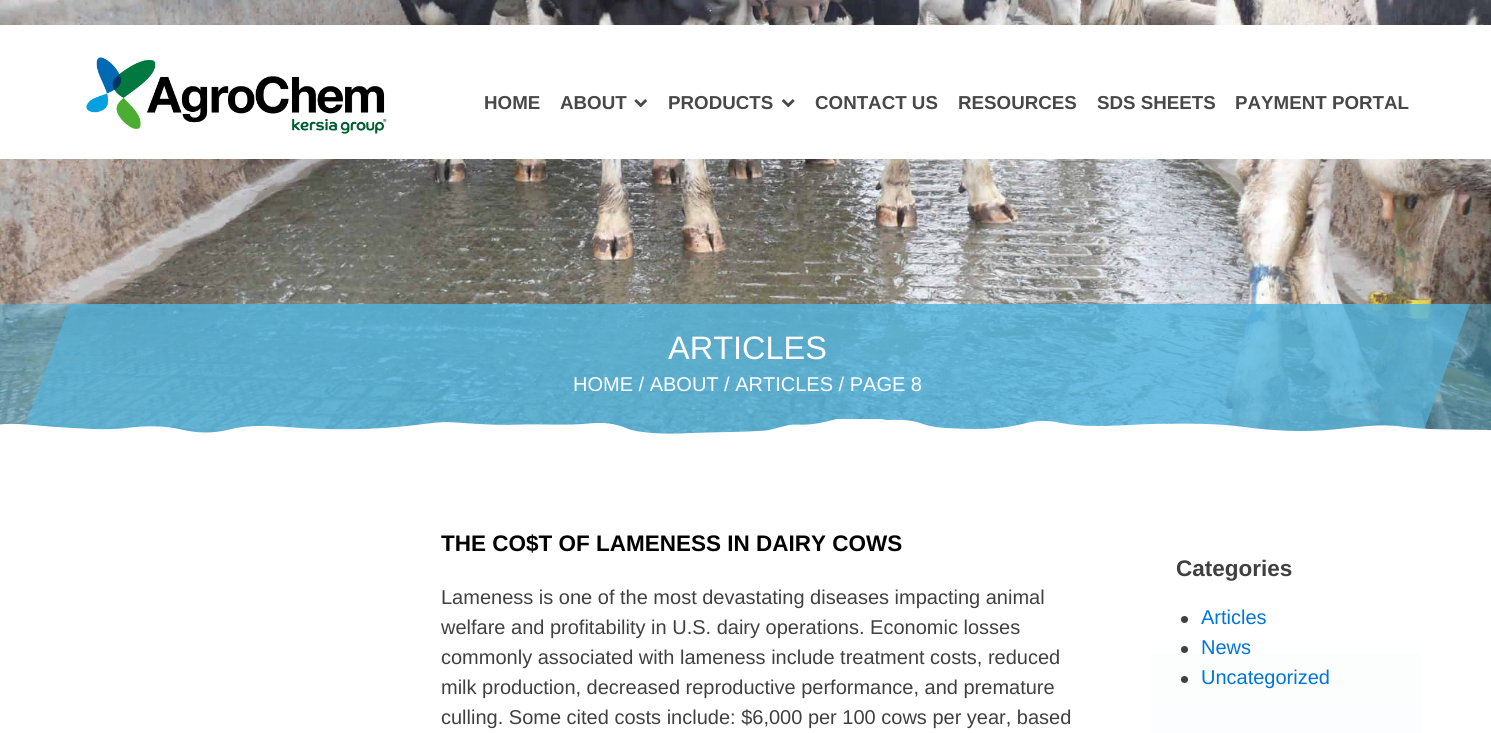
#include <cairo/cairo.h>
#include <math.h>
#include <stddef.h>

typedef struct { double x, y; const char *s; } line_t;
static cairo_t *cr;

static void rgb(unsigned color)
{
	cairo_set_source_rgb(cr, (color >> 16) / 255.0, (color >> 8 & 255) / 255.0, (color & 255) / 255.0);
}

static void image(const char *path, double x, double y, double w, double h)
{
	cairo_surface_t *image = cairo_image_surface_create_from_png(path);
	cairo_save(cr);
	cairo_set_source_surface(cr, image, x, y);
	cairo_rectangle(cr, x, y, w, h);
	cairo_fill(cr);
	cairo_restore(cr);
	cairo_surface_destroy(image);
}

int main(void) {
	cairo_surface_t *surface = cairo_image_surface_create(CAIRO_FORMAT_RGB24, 1491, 733);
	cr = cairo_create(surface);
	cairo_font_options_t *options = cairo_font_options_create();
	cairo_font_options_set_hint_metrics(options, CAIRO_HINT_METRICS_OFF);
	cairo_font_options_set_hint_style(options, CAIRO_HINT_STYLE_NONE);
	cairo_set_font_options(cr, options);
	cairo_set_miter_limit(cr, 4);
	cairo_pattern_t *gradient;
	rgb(0xffffff);
	cairo_paint(cr);
	image("img/4.png", 0, 0, 1491, 434);
	rgb(0xffffff);
	cairo_rectangle(cr, 0, 25, 1491, 134);
	cairo_fill(cr);
	image("img/1.png", 86, 57, 301, 77);
	image("img/2.png", 634, 99, 13, 9);
	image("img/3.png", 782, 99, 13, 9);
	cairo_set_source_rgba(cr, 0.322, 0.71, 0.871, 0.47);
	cairo_rectangle(cr, 0, 304, 1491, 130);
	cairo_fill(cr);
	cairo_set_source_rgba(cr, 0.322, 0.71, 0.871, 0.66);
	cairo_new_path(cr);
	cairo_move_to(cr, 70, 304);
	cairo_line_to(cr, 1470, 304);
	cairo_line_to(cr, 1421, 438);
	cairo_line_to(cr, 21, 438);
	cairo_close_path(cr);
	cairo_fill(cr);
	image("img/5.png", 0, 419, 1491, 19);
	gradient = cairo_pattern_create_linear(1286, 531, 1286, 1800);
	cairo_pattern_add_color_stop_rgba(gradient, 0, 1, 1, 1, 1);
	cairo_pattern_add_color_stop_rgba(gradient, 1, 0.898, 0.957, 0.98, 1);
	cairo_set_source(cr, gradient);
	cairo_pattern_destroy(gradient);
	cairo_rectangle(cr, 1151, 653, 270, 80);
	cairo_fill(cr);
	rgb(0x404040);
	cairo_arc(cr, 1184.5, 619.5, 3.5, 0, 2 * M_PI);
	cairo_fill(cr);
	cairo_arc(cr, 1184.5, 649.5, 3.5, 0, 2 * M_PI);
	cairo_fill(cr);
	cairo_arc(cr, 1184.5, 679.5, 3.5, 0, 2 * M_PI);
	cairo_fill(cr);
	cairo_select_font_face(cr, "Liberation Sans", CAIRO_FONT_SLANT_NORMAL, CAIRO_FONT_WEIGHT_BOLD);
	cairo_set_font_size(cr, 18.75);
	rgb(0x484848);
	{
		static const line_t items[] = {
			{484, 109, "HOME"},
			{560, 109, "ABOUT"},
			{668, 109, "PRODUCTS"},
			{815, 109, "CONTACT US"},
			{958, 109, "RESOURCES"},
			{1097, 109, "SDS SHEETS"},
			{1235, 109, "PAYMENT PORTAL"},
		};
		for (size_t i = 0; i < sizeof items / sizeof *items; i++) {
			cairo_move_to(cr, items[i].x, items[i].y);
			cairo_show_text(cr, items[i].s);
		}
	}
	cairo_select_font_face(cr, "Liberation Sans", CAIRO_FONT_SLANT_NORMAL, CAIRO_FONT_WEIGHT_NORMAL);
	cairo_set_font_size(cr, 32.5);
	rgb(0xffffff);
	cairo_move_to(cr, 668, 359);
	cairo_show_text(cr, "ARTICLES");
	cairo_set_font_size(cr, 20);
	cairo_move_to(cr, 573, 391);
	cairo_show_text(cr, "HOME / ABOUT / ARTICLES / PAGE 8");
	cairo_select_font_face(cr, "Liberation Sans", CAIRO_FONT_SLANT_NORMAL, CAIRO_FONT_WEIGHT_BOLD);
	cairo_set_font_size(cr, 22.5);
	rgb(0x000000);
	cairo_move_to(cr, 441, 551);
	cairo_show_text(cr, "THE CO$T OF LAMENESS IN DAIRY COWS");
	cairo_select_font_face(cr, "Liberation Sans", CAIRO_FONT_SLANT_NORMAL, CAIRO_FONT_WEIGHT_NORMAL);
	cairo_set_font_size(cr, 20);
	rgb(0x404040);
	{
		static const line_t items[] = {
			{441, 604, "Lameness is one of the most devastating diseases impacting animal"},
			{441, 634, "welfare and profitability in U.S. dairy operations. Economic losses"},
			{441, 664, "commonly associated with lameness include treatment costs, reduced"},
			{441, 694, "milk production, decreased reproductive performance, and premature"},
			{441, 724, "culling. Some cited costs include: $6,000 per 100 cows per year, based"},
		};
		for (size_t i = 0; i < sizeof items / sizeof *items; i++) {
			cairo_move_to(cr, items[i].x, items[i].y);
			cairo_show_text(cr, items[i].s);
		}
	}
	cairo_select_font_face(cr, "Liberation Sans", CAIRO_FONT_SLANT_NORMAL, CAIRO_FONT_WEIGHT_BOLD);
	cairo_set_font_size(cr, 22.5);
	cairo_move_to(cr, 1176, 576);
	cairo_show_text(cr, "Categories");
	cairo_select_font_face(cr, "Liberation Sans", CAIRO_FONT_SLANT_NORMAL, CAIRO_FONT_WEIGHT_NORMAL);
	cairo_set_font_size(cr, 20);
	rgb(0x0074db);
	{
		static const line_t items[] = {
			{1201, 624, "Articles"},
			{1201, 654, "News"},
			{1201, 684, "Uncategorized"},
		};
		for (size_t i = 0; i < sizeof items / sizeof *items; i++) {
			cairo_move_to(cr, items[i].x, items[i].y);
			cairo_show_text(cr, items[i].s);
		}
	}
	cairo_surface_write_to_png(surface, "page.png");
	cairo_font_options_destroy(options);
	cairo_destroy(cr);
	cairo_surface_destroy(surface);
	return 0;
}
